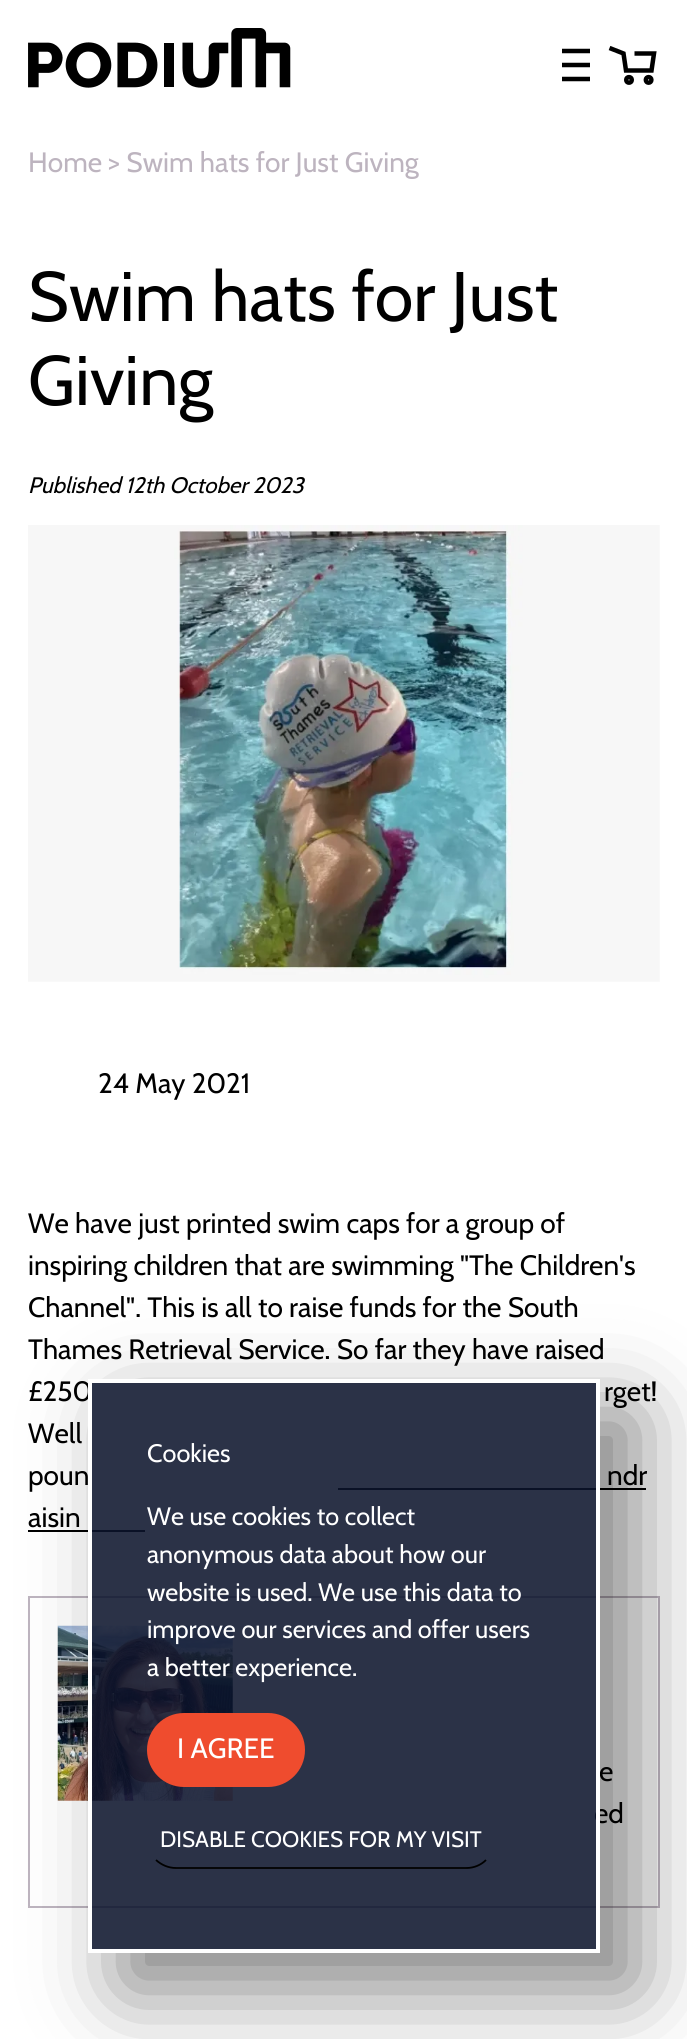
#include <cairo/cairo.h>
#include <math.h>
#include <stddef.h>

typedef struct { double x, y; const char *s; } line_t;
static cairo_t *cr;

static void rgb(unsigned color)
{
	cairo_set_source_rgb(cr, (color >> 16) / 255.0, (color >> 8 & 255) / 255.0, (color & 255) / 255.0);
}

static void rrect(double x, double y, double w, double h, double r)
{
	cairo_new_sub_path(cr);
	cairo_arc(cr, x + w - r, y + h - r, r, 0, M_PI / 2);
	cairo_arc(cr, x + r, y + h - r, r, M_PI / 2, M_PI);
	cairo_arc(cr, x + r, y + r, r, M_PI, 1.5 * M_PI);
	cairo_arc(cr, x + w - r, y + r, r, 1.5 * M_PI, 2 * M_PI);
	cairo_close_path(cr);
}

static void soft_shadow(double x, double y, double w, double h, double r, double blur, double alpha)
{
	cairo_push_group_with_content(cr, CAIRO_CONTENT_ALPHA);
	cairo_set_operator(cr, CAIRO_OPERATOR_SOURCE);
	for (int i = 15; i >= -15 && fmin(w, h) + blur * i / 3 > 0; i -= 2) {
		double e = blur * i / 6;
		cairo_set_source_rgba(cr, 0, 0, 0, alpha * erfc((i - 1) / 8.5) / 2);
		rrect(x - e, y - e, w + 2 * e, h + 2 * e, fmax(0, fmin(r + e + blur * .6, fmin(w, h) / 2 + e)));
		cairo_fill(cr);
	}
	cairo_pattern_t *soft = cairo_pop_group(cr);
	cairo_mask(cr, soft);
	cairo_pattern_destroy(soft);
}

static void image(const char *path, double x, double y, double w, double h)
{
	cairo_surface_t *image = cairo_image_surface_create_from_png(path);
	cairo_save(cr);
	cairo_set_source_surface(cr, image, x, y);
	cairo_rectangle(cr, x, y, w, h);
	cairo_fill(cr);
	cairo_restore(cr);
	cairo_surface_destroy(image);
}

int main(void) {
	cairo_surface_t *surface = cairo_image_surface_create(CAIRO_FORMAT_RGB24, 687, 2039);
	cr = cairo_create(surface);
	cairo_font_options_t *options = cairo_font_options_create();
	cairo_font_options_set_hint_metrics(options, CAIRO_HINT_METRICS_OFF);
	cairo_font_options_set_hint_style(options, CAIRO_HINT_STYLE_NONE);
	cairo_set_font_options(cr, options);
	cairo_set_miter_limit(cr, 4);
	rgb(0xffffff);
	cairo_paint(cr);
	image("img/1.png", 28, 28, 263, 60);
	cairo_new_path(cr);
	cairo_move_to(cr, 562, 51);
	cairo_line_to(cr, 590, 51);
	cairo_move_to(cr, 562, 65);
	cairo_line_to(cr, 590, 65);
	cairo_move_to(cr, 562, 79);
	cairo_line_to(cr, 590, 79);
	rgb(0x000000);
	cairo_set_line_width(cr, 4.5);
	cairo_stroke(cr);
	cairo_new_path(cr);
	cairo_move_to(cr, 609.5, 48);
	cairo_line_to(cr, 623.5, 53.5);
	cairo_line_to(cr, 626, 70.5);
	cairo_line_to(cr, 651.5, 70.5);
	cairo_line_to(cr, 654, 53.5);
	cairo_line_to(cr, 634.5, 53.5);
	cairo_stroke(cr);
	cairo_arc(cr, 629, 79.9, 2.8, 0, 2 * M_PI);
	cairo_stroke(cr);
	cairo_arc(cr, 648.6, 79.9, 2.8, 0, 2 * M_PI);
	cairo_stroke(cr);
	image("img/2.png", 28, 525, 632, 457);
	cairo_rectangle(cr, 338, 1488, 308, 2);
	cairo_fill(cr);
	cairo_rectangle(cr, 28, 1530, 117, 2);
	cairo_fill(cr);
	cairo_rectangle(cr, 29, 1597, 630, 310);
	rgb(0xbdb4bf);
	cairo_set_line_width(cr, 2);
	cairo_stroke(cr);
	image("img/3.png", 57, 1625, 176, 176);
	cairo_save(cr);
	cairo_set_fill_rule(cr, CAIRO_FILL_RULE_EVEN_ODD);
	cairo_new_path(cr);
	cairo_move_to(cr, 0, 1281);
	cairo_line_to(cr, 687, 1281);
	cairo_line_to(cr, 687, 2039);
	cairo_line_to(cr, 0, 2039);
	cairo_close_path(cr);
	cairo_move_to(cr, 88, 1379);
	cairo_line_to(cr, 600, 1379);
	cairo_line_to(cr, 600, 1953);
	cairo_line_to(cr, 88, 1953);
	cairo_close_path(cr);
	cairo_clip(cr);
	rgb(0x000000);
	soft_shadow(123, 1414, 512, 574, 0, 44, 0.5);
	cairo_restore(cr);
	cairo_select_font_face(cr, "Cabin", CAIRO_FONT_SLANT_NORMAL, CAIRO_FONT_WEIGHT_NORMAL);
	cairo_set_font_size(cr, 28);
	cairo_move_to(cr, 28, 172);
	cairo_show_text(cr, "Home > Swim hats for Just Giving");
	cairo_set_font_size(cr, 70);
	rgb(0x000000);
	cairo_move_to(cr, 28, 321);
	cairo_show_text(cr, "Swim hats for Just");
	cairo_move_to(cr, 28, 405);
	cairo_show_text(cr, "Giving");
	cairo_select_font_face(cr, "Cabin", CAIRO_FONT_SLANT_ITALIC, CAIRO_FONT_WEIGHT_NORMAL);
	cairo_set_font_size(cr, 22.4);
	cairo_move_to(cr, 28, 493);
	cairo_show_text(cr, "Published 12th October 2023");
	cairo_select_font_face(cr, "Cabin", CAIRO_FONT_SLANT_NORMAL, CAIRO_FONT_WEIGHT_NORMAL);
	cairo_set_font_size(cr, 28);
	{
		static const line_t items[] = {
			{98, 1093, "24 May 2021"},
			{28, 1233, "We have just printed swim caps for a group of"},
			{28, 1275, "inspiring children that are swimming \"The Children's"},
			{28, 1317, "Channel\". This is all to raise funds for the South"},
			{28, 1359, "Thames Retrieval Service. So far they have raised"},
			{28, 1401, "£250"},
			{604, 1401, "rget!"},
			{28, 1443, "Well"},
			{28, 1485, "poun"},
			{607, 1485, "ndr"},
			{28, 1527, "aisin"},
			{599, 1781, "e"},
			{594, 1823, "ed"},
		};
		for (size_t i = 0; i < sizeof items / sizeof *items; i++) {
			cairo_move_to(cr, items[i].x, items[i].y);
			cairo_show_text(cr, items[i].s);
		}
	}
	cairo_set_source_rgba(cr, 0.047, 0.078, 0.173, 0.87);
	cairo_rectangle(cr, 90, 1381, 508, 570);
	cairo_fill_preserve(cr);
	rgb(0xffffff);
	cairo_set_line_width(cr, 4);
	cairo_stroke(cr);
	cairo_set_font_size(cr, 25.25);
	{
		static const line_t items[] = {
			{147, 1462, "Cookies"},
			{147, 1525, "We use cookies to collect"},
			{147, 1563, "anonymous data about how our"},
			{147, 1601, "website is used. We use this data to"},
			{147, 1638, "improve our services and offer users"},
			{147, 1676, "a better experience."},
		};
		for (size_t i = 0; i < sizeof items / sizeof *items; i++) {
			cairo_move_to(cr, items[i].x, items[i].y);
			cairo_show_text(cr, items[i].s);
		}
	}
	rgb(0xef4c2e);
	rrect(148, 1714, 156, 72, 36);
	cairo_fill_preserve(cr);
	cairo_set_line_width(cr, 2);
	cairo_stroke(cr);
	cairo_set_font_size(cr, 28);
	rgb(0xffffff);
	cairo_move_to(cr, 177, 1758);
	cairo_show_text(cr, "I AGREE");
	cairo_new_path(cr);
	cairo_move_to(cr, 486, 1860);
	cairo_curve_to(cr, 481, 1865, 474, 1868, 466.5, 1868);
	cairo_line_to(cr, 176, 1868);
	cairo_curve_to(cr, 168.5, 1868, 161.5, 1865, 156, 1860);
	rgb(0x000000);
	cairo_set_line_width(cr, 1.8);
	cairo_stroke(cr);
	cairo_set_font_size(cr, 22.4);
	rgb(0xffffff);
	cairo_move_to(cr, 160, 1847);
	cairo_show_text(cr, "DISABLE COOKIES FOR MY VISIT");
	cairo_surface_write_to_png(surface, "page.png");
	cairo_font_options_destroy(options);
	cairo_destroy(cr);
	cairo_surface_destroy(surface);
	return 0;
}
